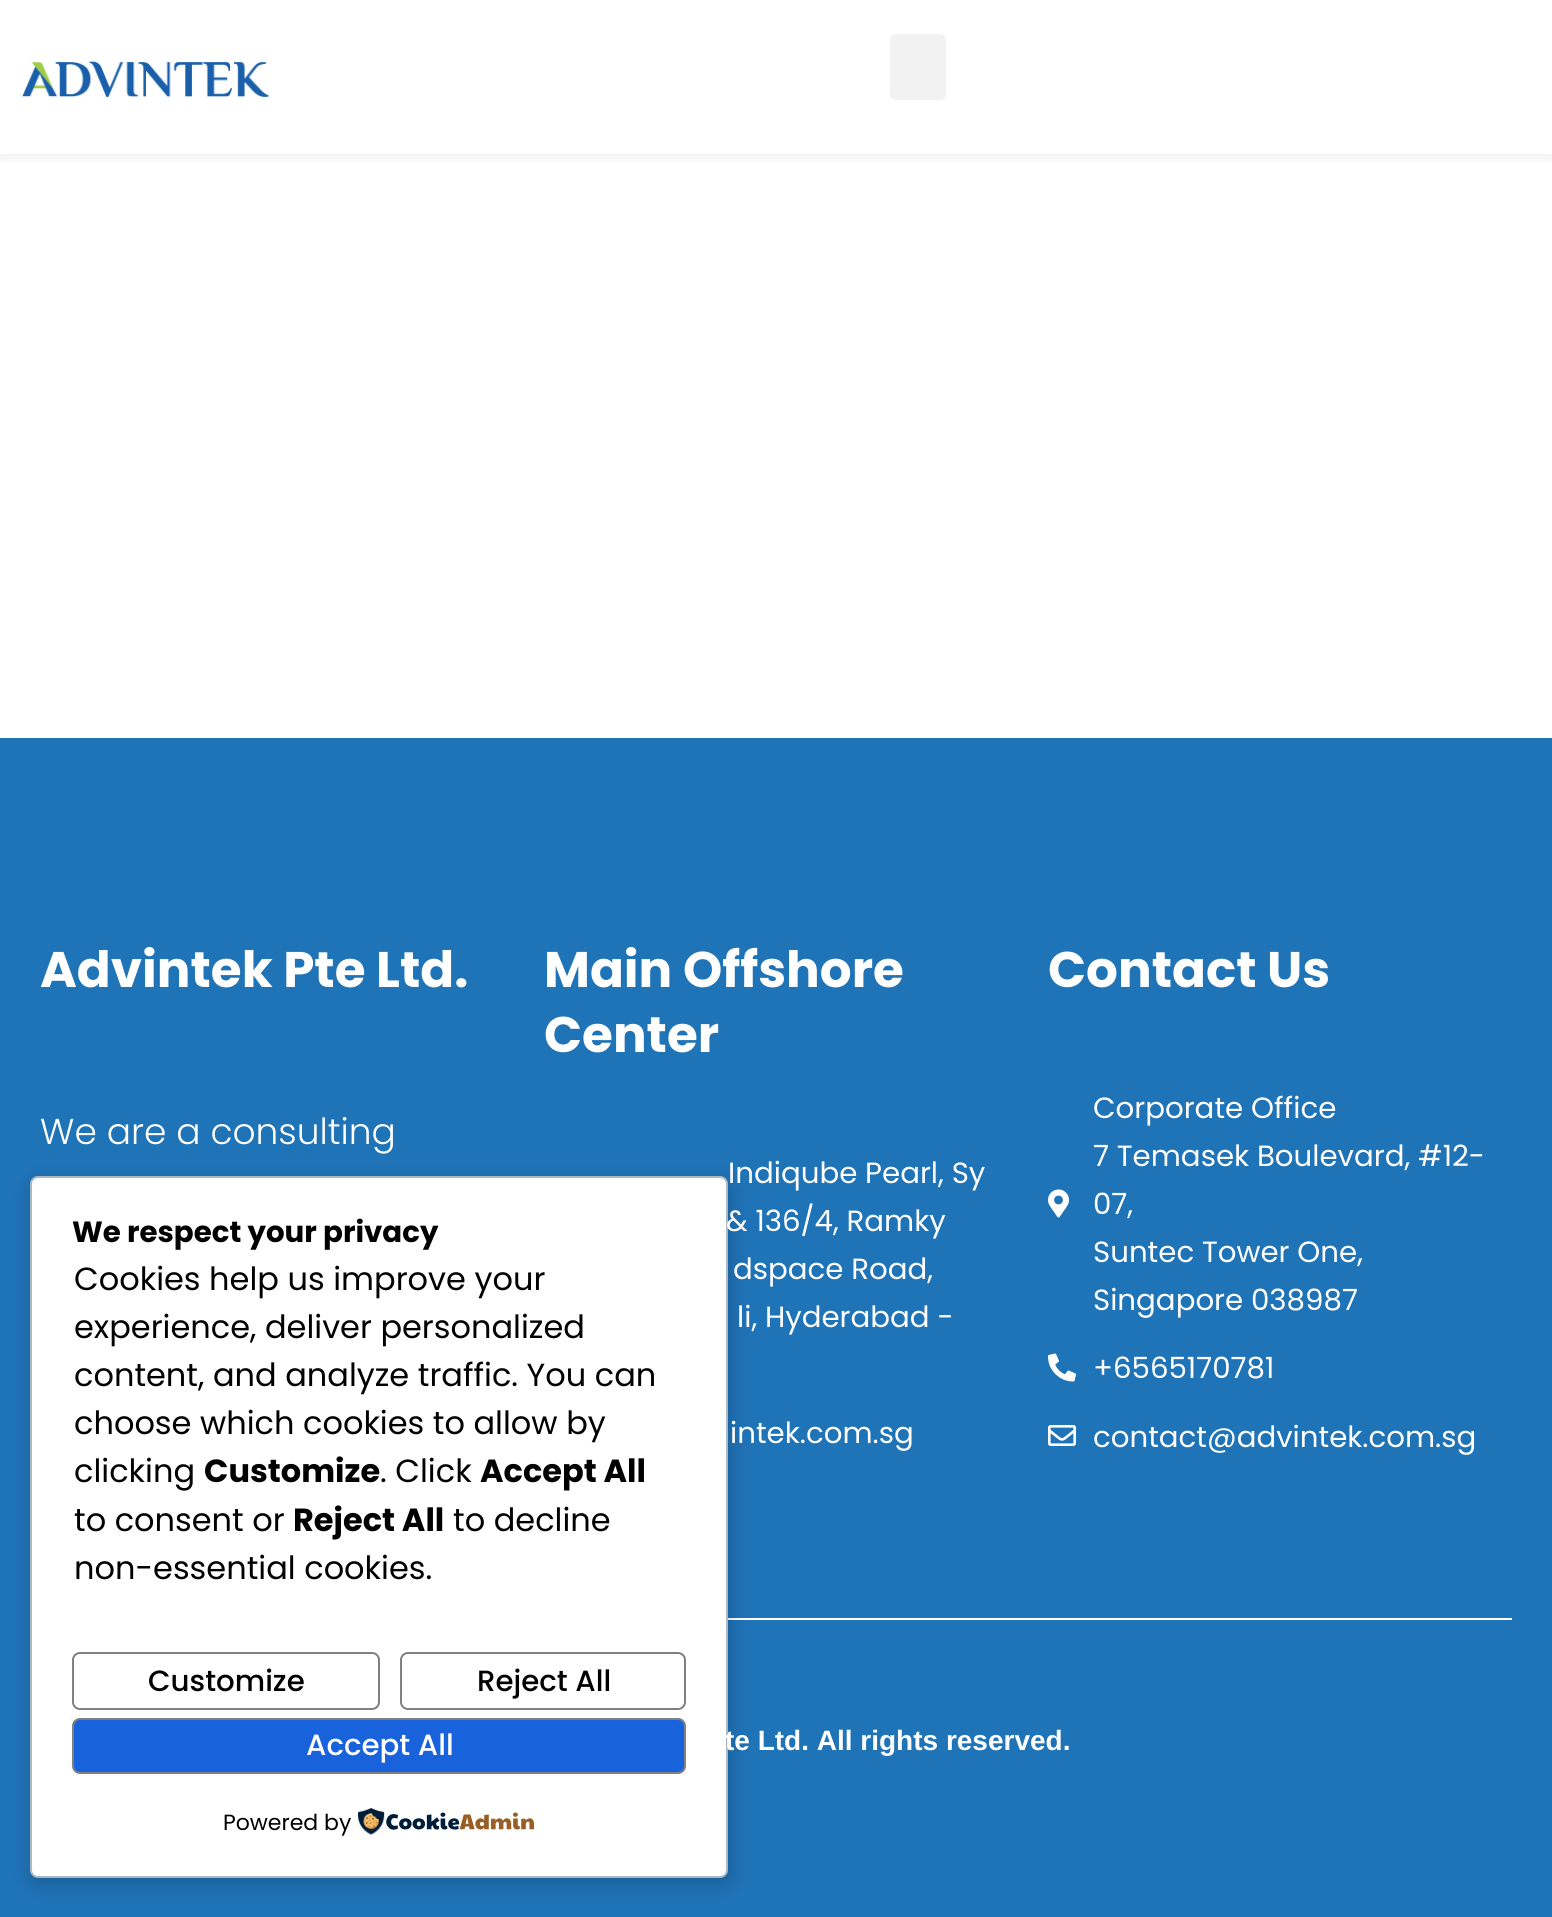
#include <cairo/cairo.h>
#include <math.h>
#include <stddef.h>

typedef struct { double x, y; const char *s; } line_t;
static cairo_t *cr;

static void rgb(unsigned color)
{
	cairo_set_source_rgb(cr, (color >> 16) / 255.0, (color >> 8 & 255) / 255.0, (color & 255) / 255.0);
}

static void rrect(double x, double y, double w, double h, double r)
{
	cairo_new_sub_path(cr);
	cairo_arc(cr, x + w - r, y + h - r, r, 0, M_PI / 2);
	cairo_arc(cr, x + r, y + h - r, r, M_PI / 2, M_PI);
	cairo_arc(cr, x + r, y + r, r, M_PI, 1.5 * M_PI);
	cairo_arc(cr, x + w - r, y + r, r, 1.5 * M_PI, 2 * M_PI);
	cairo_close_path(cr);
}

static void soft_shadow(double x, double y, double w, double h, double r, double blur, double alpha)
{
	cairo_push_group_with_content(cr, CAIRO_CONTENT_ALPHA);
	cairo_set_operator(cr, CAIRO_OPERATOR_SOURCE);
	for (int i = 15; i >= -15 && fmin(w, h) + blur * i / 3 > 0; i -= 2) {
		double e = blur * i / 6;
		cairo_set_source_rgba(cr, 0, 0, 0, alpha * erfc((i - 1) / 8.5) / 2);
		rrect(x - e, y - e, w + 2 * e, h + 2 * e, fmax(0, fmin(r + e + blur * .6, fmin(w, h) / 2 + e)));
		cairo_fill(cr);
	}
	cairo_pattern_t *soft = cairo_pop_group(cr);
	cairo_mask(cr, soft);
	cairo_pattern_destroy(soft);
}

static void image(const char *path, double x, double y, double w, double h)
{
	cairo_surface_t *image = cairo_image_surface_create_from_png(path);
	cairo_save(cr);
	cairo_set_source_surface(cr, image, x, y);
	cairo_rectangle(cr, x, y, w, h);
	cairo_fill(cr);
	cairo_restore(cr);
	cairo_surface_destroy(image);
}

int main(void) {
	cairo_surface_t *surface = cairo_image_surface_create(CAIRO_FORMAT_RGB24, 1552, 1917);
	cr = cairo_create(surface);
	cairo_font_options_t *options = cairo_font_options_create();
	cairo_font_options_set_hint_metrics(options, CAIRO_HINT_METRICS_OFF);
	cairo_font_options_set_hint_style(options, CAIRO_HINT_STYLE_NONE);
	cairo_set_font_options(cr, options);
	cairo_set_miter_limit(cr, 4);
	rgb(0xffffff);
	cairo_paint(cr);
	cairo_save(cr);
	cairo_rectangle(cr, 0, 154, 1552, 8);
	cairo_clip(cr);
	rgb(0x000000);
	soft_shadow(0, 0, 1552, 154, 0, 10, 0.1);
	cairo_restore(cr);
	image("img/1.png", 22, 61, 248, 37);
	rgb(0xf2f2f2);
	rrect(890, 34, 56, 66, 6);
	cairo_fill(cr);
	rgb(0x1f73b7);
	cairo_rectangle(cr, 0, 738, 1552, 1179);
	cairo_fill(cr);
	image("img/2.png", 1048, 1189, 21, 29);
	image("img/3.png", 1048, 1353, 28, 29);
	image("img/4.png", 1048, 1425, 28, 21);
	rgb(0xffffff);
	cairo_rectangle(cr, 728, 1618, 784, 2);
	cairo_fill(cr);
	rgb(0x000000);
	soft_shadow(32, 1182, 698, 702, 8, 10, 0.2);
	rgb(0xffffff);
	rrect(31, 1177, 696, 700, 7);
	cairo_fill_preserve(cr);
	rgb(0xabb8c3);
	cairo_stroke(cr);
	rrect(73, 1653, 306, 56, 7);
	rgb(0x808080);
	cairo_stroke(cr);
	rrect(401, 1653, 284, 56, 7);
	cairo_stroke(cr);
	rgb(0x1863dc);
	rrect(73, 1719, 612, 54, 7);
	cairo_fill_preserve(cr);
	rgb(0x808080);
	cairo_stroke(cr);
	image("img/5.png", 358, 1808, 177, 27);
	cairo_select_font_face(cr, "Poppins", CAIRO_FONT_SLANT_NORMAL, CAIRO_FONT_WEIGHT_BOLD);
	cairo_set_font_size(cr, 50);
	rgb(0xffffff);
	cairo_move_to(cr, 40, 987);
	cairo_show_text(cr, "Advintek Pte Ltd.");
	cairo_select_font_face(cr, "Poppins Light", CAIRO_FONT_SLANT_NORMAL, CAIRO_FONT_WEIGHT_NORMAL);
	cairo_set_font_size(cr, 36);
	cairo_move_to(cr, 40, 1144);
	cairo_show_text(cr, "We are a consulting");
	cairo_select_font_face(cr, "Poppins", CAIRO_FONT_SLANT_NORMAL, CAIRO_FONT_WEIGHT_BOLD);
	cairo_set_font_size(cr, 50);
	cairo_move_to(cr, 544, 987);
	cairo_show_text(cr, "Main Offshore");
	cairo_move_to(cr, 544, 1052);
	cairo_show_text(cr, "Center");
	cairo_select_font_face(cr, "Poppins", CAIRO_FONT_SLANT_NORMAL, CAIRO_FONT_WEIGHT_NORMAL);
	cairo_set_font_size(cr, 29.25);
	{
		static const line_t items[] = {
			{728, 1183, "Indiqube Pearl, Sy"},
			{726, 1231, "& 136/4, Ramky"},
			{733, 1279, "dspace Road,"},
			{737, 1327, "li, Hyderabad -"},
			{730, 1443, "intek.com.sg"},
		};
		for (size_t i = 0; i < sizeof items / sizeof *items; i++) {
			cairo_move_to(cr, items[i].x, items[i].y);
			cairo_show_text(cr, items[i].s);
		}
	}
	cairo_select_font_face(cr, "Poppins", CAIRO_FONT_SLANT_NORMAL, CAIRO_FONT_WEIGHT_BOLD);
	cairo_set_font_size(cr, 50);
	cairo_move_to(cr, 1048, 987);
	cairo_show_text(cr, "Contact Us");
	cairo_select_font_face(cr, "Poppins", CAIRO_FONT_SLANT_NORMAL, CAIRO_FONT_WEIGHT_NORMAL);
	cairo_set_font_size(cr, 29.25);
	{
		static const line_t items[] = {
			{1093, 1118, "Corporate Office"},
			{1093, 1166, "7 Temasek Boulevard, #12-"},
			{1093, 1214, "07,"},
			{1093, 1262, "Suntec Tower One,"},
			{1093, 1310, "Singapore 038987"},
			{1093, 1378, "+6565170781"},
			{1093, 1447, "contact@advintek.com.sg"},
		};
		for (size_t i = 0; i < sizeof items / sizeof *items; i++) {
			cairo_move_to(cr, items[i].x, items[i].y);
			cairo_show_text(cr, items[i].s);
		}
	}
	cairo_select_font_face(cr, "Liberation Sans", CAIRO_FONT_SLANT_NORMAL, CAIRO_FONT_WEIGHT_BOLD);
	cairo_set_font_size(cr, 28);
	cairo_move_to(cr, 725, 1750);
	cairo_show_text(cr, "te Ltd. All rights reserved.");
	cairo_select_font_face(cr, "Poppins", CAIRO_FONT_SLANT_NORMAL, CAIRO_FONT_WEIGHT_BOLD);
	cairo_set_font_size(cr, 29.25);
	rgb(0x000000);
	cairo_move_to(cr, 72, 1242);
	cairo_show_text(cr, "We respect your privacy");
	cairo_select_font_face(cr, "Poppins", CAIRO_FONT_SLANT_NORMAL, CAIRO_FONT_WEIGHT_NORMAL);
	cairo_set_font_size(cr, 32);
	{
		static const line_t items[] = {
			{74, 1290, "Cookies help us improve your"},
			{74, 1338, "experience, deliver personalized"},
			{74, 1386, "content, and analyze traffic. You can"},
			{74, 1434, "choose which cookies to allow by"},
			{74, 1482, "clicking"},
		};
		for (size_t i = 0; i < sizeof items / sizeof *items; i++) {
			cairo_move_to(cr, items[i].x, items[i].y);
			cairo_show_text(cr, items[i].s);
		}
	}
	cairo_select_font_face(cr, "Poppins", CAIRO_FONT_SLANT_NORMAL, CAIRO_FONT_WEIGHT_BOLD);
	cairo_move_to(cr, 204, 1482);
	cairo_show_text(cr, "Customize");
	cairo_select_font_face(cr, "Poppins", CAIRO_FONT_SLANT_NORMAL, CAIRO_FONT_WEIGHT_NORMAL);
	cairo_move_to(cr, 380, 1482);
	cairo_show_text(cr, ". Click");
	cairo_select_font_face(cr, "Poppins", CAIRO_FONT_SLANT_NORMAL, CAIRO_FONT_WEIGHT_BOLD);
	cairo_move_to(cr, 480, 1482);
	cairo_show_text(cr, "Accept All");
	cairo_select_font_face(cr, "Poppins", CAIRO_FONT_SLANT_NORMAL, CAIRO_FONT_WEIGHT_NORMAL);
	cairo_move_to(cr, 74, 1531);
	cairo_show_text(cr, "to consent or");
	cairo_select_font_face(cr, "Poppins", CAIRO_FONT_SLANT_NORMAL, CAIRO_FONT_WEIGHT_BOLD);
	cairo_move_to(cr, 293, 1531);
	cairo_show_text(cr, "Reject All");
	cairo_select_font_face(cr, "Poppins", CAIRO_FONT_SLANT_NORMAL, CAIRO_FONT_WEIGHT_NORMAL);
	cairo_move_to(cr, 453, 1531);
	cairo_show_text(cr, "to decline");
	cairo_move_to(cr, 74, 1579);
	cairo_show_text(cr, "non-essential cookies.");
	cairo_select_font_face(cr, "Poppins Medium", CAIRO_FONT_SLANT_NORMAL, CAIRO_FONT_WEIGHT_NORMAL);
	cairo_set_font_size(cr, 29.25);
	cairo_move_to(cr, 148, 1691);
	cairo_show_text(cr, "Customize");
	cairo_move_to(cr, 477, 1691);
	cairo_show_text(cr, "Reject All");
	rgb(0xffffff);
	cairo_move_to(cr, 306, 1755);
	cairo_show_text(cr, "Accept All");
	cairo_select_font_face(cr, "Poppins", CAIRO_FONT_SLANT_NORMAL, CAIRO_FONT_WEIGHT_NORMAL);
	cairo_set_font_size(cr, 22);
	rgb(0x000000);
	cairo_move_to(cr, 223, 1830);
	cairo_show_text(cr, "Powered by");
	cairo_surface_write_to_png(surface, "page.png");
	cairo_font_options_destroy(options);
	cairo_destroy(cr);
	cairo_surface_destroy(surface);
	return 0;
}
